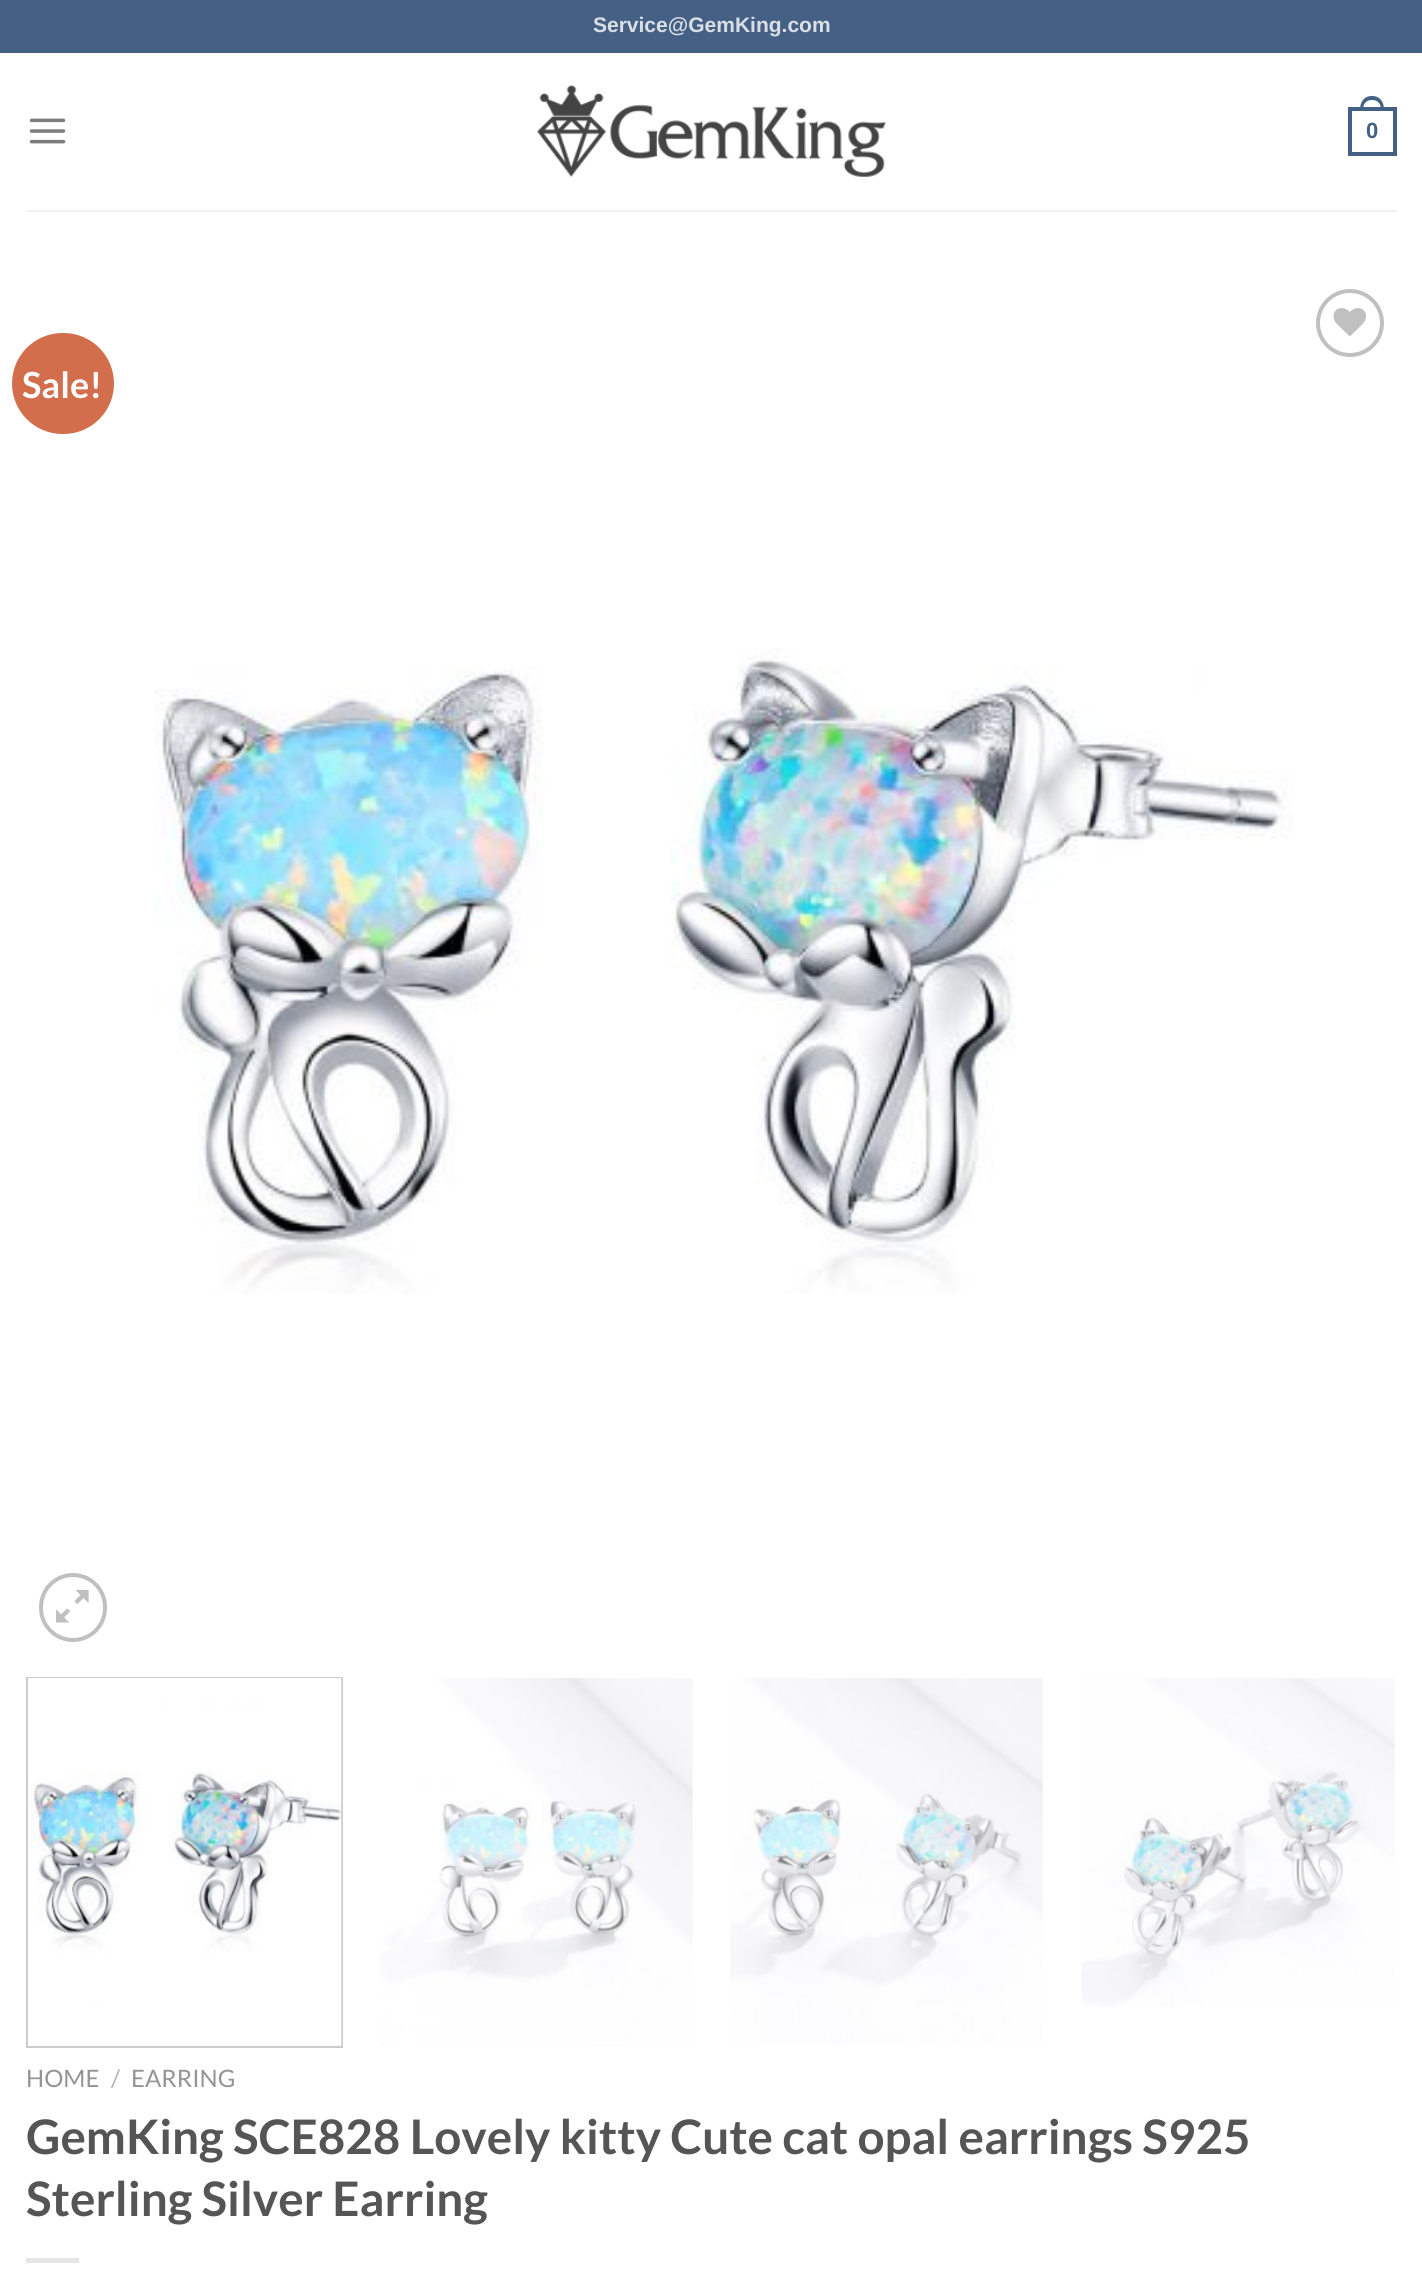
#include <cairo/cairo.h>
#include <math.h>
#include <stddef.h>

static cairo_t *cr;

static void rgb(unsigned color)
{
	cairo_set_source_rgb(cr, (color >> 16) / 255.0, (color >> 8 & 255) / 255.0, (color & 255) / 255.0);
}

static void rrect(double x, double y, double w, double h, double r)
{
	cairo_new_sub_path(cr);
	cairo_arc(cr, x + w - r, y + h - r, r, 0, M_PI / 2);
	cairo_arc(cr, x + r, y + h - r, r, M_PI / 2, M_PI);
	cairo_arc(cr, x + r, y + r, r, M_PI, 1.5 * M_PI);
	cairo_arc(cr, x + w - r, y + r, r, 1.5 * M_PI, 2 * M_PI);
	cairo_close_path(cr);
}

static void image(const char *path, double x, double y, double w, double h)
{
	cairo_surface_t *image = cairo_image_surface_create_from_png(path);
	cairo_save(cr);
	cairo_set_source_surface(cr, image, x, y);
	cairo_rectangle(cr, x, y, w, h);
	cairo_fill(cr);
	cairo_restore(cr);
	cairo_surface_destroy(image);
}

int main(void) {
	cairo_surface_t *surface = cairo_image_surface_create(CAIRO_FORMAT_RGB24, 1422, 2272);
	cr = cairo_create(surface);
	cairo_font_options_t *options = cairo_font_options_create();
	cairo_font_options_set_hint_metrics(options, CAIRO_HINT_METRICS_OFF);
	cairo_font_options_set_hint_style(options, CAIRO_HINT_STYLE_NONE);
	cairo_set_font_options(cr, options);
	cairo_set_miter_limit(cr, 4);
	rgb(0xffffff);
	cairo_paint(cr);
	rgb(0x446084);
	cairo_rectangle(cr, 0, 0, 1422, 53);
	cairo_fill(cr);
	image("img/1.png", 29, 118, 37, 26);
	image("img/2.png", 537, 85, 349, 92);
	cairo_rectangle(cr, 1350, 109, 45, 45);
	cairo_set_line_width(cr, 4);
	cairo_stroke(cr);
	cairo_set_fill_rule(cr, CAIRO_FILL_RULE_EVEN_ODD);
	cairo_new_path(cr);
	cairo_move_to(cr, 1372, 96);
	cairo_curve_to(cr, 1380.5, 96, 1384, 102.5, 1384, 110);
	cairo_line_to(cr, 1360, 110);
	cairo_curve_to(cr, 1360, 102.5, 1363.5, 96, 1372, 96);
	cairo_close_path(cr);
	cairo_move_to(cr, 1372, 100);
	cairo_curve_to(cr, 1378.5, 100, 1381, 104.5, 1381, 110);
	cairo_line_to(cr, 1363, 110);
	cairo_curve_to(cr, 1363, 104.5, 1365.5, 100, 1372, 100);
	cairo_close_path(cr);
	cairo_fill(cr);
	rgb(0xf1f1f1);
	cairo_rectangle(cr, 26, 210, 1371, 2);
	cairo_fill(cr);
	cairo_arc(cr, 1350, 323, 32, 0, 2 * M_PI);
	rgb(0xc0c0c0);
	cairo_stroke(cr);
	image("img/3.png", 1333, 308, 34, 28);
	rgb(0xd26e4b);
	rrect(12, 333, 102, 101, 50.5);
	cairo_fill(cr);
	image("img/4.png", 155, 648, 1139, 646);
	rrect(41, 1575, 64, 65, 32);
	rgb(0xc0c0c0);
	cairo_stroke(cr);
	image("img/5.png", 56, 1589, 33, 34);
	cairo_rectangle(cr, 27, 1678, 315, 369);
	rgb(0xcccccc);
	cairo_set_line_width(cr, 2);
	cairo_stroke(cr);
	image("img/6.png", 28, 1678, 314, 368);
	image("img/7.png", 380, 1678, 313, 368);
	image("img/8.png", 730, 1678, 313, 367);
	image("img/9.png", 1081, 1678, 314, 329);
	rgb(0xe6e6e6);
	cairo_rectangle(cr, 26, 2258, 53, 5);
	cairo_fill(cr);
	cairo_select_font_face(cr, "Liberation Sans", CAIRO_FONT_SLANT_NORMAL, CAIRO_FONT_WEIGHT_BOLD);
	cairo_set_font_size(cr, 21);
	rgb(0xdadfe6);
	cairo_move_to(cr, 593, 32);
	cairo_show_text(cr, "Service@GemKing.com");
	cairo_set_font_size(cr, 22);
	rgb(0x446084);
	cairo_move_to(cr, 1366, 138);
	cairo_show_text(cr, "0");
	cairo_select_font_face(cr, "Lato", CAIRO_FONT_SLANT_NORMAL, CAIRO_FONT_WEIGHT_BOLD);
	cairo_set_font_size(cr, 36);
	rgb(0xffffff);
	cairo_move_to(cr, 22, 398);
	cairo_show_text(cr, "Sale!");
	cairo_select_font_face(cr, "Lato", CAIRO_FONT_SLANT_NORMAL, CAIRO_FONT_WEIGHT_NORMAL);
	cairo_set_font_size(cr, 24);
	rgb(0x949494);
	cairo_move_to(cr, 26, 2087);
	cairo_show_text(cr, "HOME");
	rgb(0xb2b2b2);
	cairo_move_to(cr, 111, 2087);
	cairo_show_text(cr, "/");
	rgb(0x949494);
	cairo_move_to(cr, 131, 2087);
	cairo_show_text(cr, "EARRING");
	cairo_select_font_face(cr, "Lato", CAIRO_FONT_SLANT_NORMAL, CAIRO_FONT_WEIGHT_BOLD);
	cairo_set_font_size(cr, 47.6);
	rgb(0x555555);
	cairo_move_to(cr, 26, 2154);
	cairo_show_text(cr, "GemKing SCE828 Lovely kitty Cute cat opal earrings S925");
	cairo_move_to(cr, 26, 2216);
	cairo_show_text(cr, "Sterling Silver Earring");
	cairo_surface_write_to_png(surface, "page.png");
	cairo_font_options_destroy(options);
	cairo_destroy(cr);
	cairo_surface_destroy(surface);
	return 0;
}
